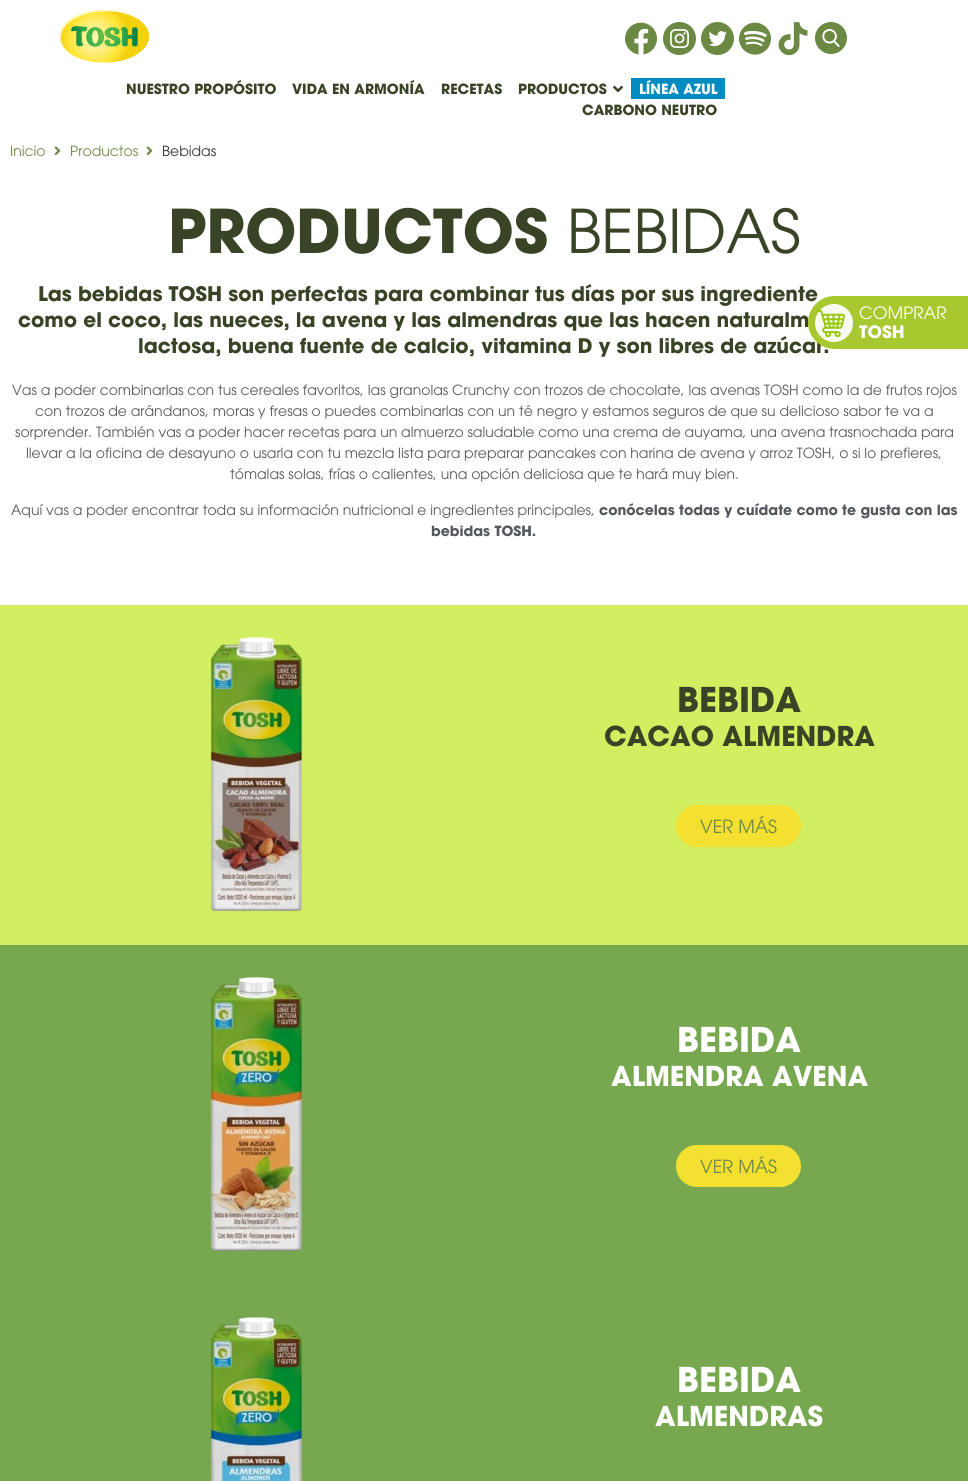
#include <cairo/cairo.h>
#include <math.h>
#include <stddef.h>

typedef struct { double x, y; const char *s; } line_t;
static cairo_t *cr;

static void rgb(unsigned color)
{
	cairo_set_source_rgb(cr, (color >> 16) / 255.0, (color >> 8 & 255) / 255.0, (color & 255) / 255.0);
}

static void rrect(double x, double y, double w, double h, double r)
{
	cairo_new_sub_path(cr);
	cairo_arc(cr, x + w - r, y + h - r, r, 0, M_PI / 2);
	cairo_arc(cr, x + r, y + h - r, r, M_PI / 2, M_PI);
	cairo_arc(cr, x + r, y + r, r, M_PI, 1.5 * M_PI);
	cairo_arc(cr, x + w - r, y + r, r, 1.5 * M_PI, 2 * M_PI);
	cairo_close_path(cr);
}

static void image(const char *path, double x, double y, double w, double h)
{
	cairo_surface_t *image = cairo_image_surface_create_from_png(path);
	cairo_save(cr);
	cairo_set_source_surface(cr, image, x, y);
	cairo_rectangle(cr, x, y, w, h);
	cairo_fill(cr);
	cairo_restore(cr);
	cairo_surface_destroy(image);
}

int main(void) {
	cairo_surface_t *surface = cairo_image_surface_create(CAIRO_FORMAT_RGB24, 968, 1481);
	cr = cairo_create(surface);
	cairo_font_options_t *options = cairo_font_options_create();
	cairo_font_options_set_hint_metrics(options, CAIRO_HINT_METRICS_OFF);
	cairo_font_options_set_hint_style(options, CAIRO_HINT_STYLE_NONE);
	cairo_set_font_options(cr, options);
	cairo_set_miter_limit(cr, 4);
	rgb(0xffffff);
	cairo_paint(cr);
	image("img/1.png", 59, 10, 90, 53);
	image("img/2.png", 625, 22, 32, 33);
	image("img/3.png", 663, 22, 33, 33);
	image("img/4.png", 701, 22, 33, 33);
	image("img/5.png", 739, 22, 32, 33);
	image("img/6.png", 778, 22, 30, 34);
	rgb(0x6c8944);
	cairo_arc(cr, 831, 38, 16, 0, 2 * M_PI);
	cairo_fill(cr);
	image("img/7.png", 822, 29, 18, 18);
	image("img/8.png", 613, 85, 10, 8);
	rgb(0x008cc0);
	cairo_rectangle(cr, 631, 78, 94, 21);
	cairo_fill(cr);
	image("img/9.png", 54, 146, 7, 10);
	image("img/9.png", 146, 146, 7, 10);
	rgb(0xd2ef61);
	cairo_rectangle(cr, 0, 605, 968, 340);
	cairo_fill(cr);
	image("img/10.png", 210, 637, 93, 275);
	rgb(0xf4e030);
	rrect(676, 805, 125, 42, 21);
	cairo_fill(cr);
	rgb(0x77a84f);
	cairo_rectangle(cr, 0, 945, 968, 536);
	cairo_fill(cr);
	image("img/11.png", 210, 977, 92, 274);
	rgb(0xf4e030);
	rrect(676, 1145, 125, 42, 21);
	cairo_fill(cr);
	image("img/12.png", 210, 1317, 92, 164);
	cairo_select_font_face(cr, "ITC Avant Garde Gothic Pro", CAIRO_FONT_SLANT_NORMAL, CAIRO_FONT_WEIGHT_BOLD);
	cairo_set_font_size(cr, 14);
	rgb(0x384425);
	{
		static const line_t items[] = {
			{126, 94, "NUESTRO PROPÓSITO"},
			{292, 94, "VIDA EN ARMONÍA"},
			{441, 94, "RECETAS"},
			{518, 94, "PRODUCTOS"},
		};
		for (size_t i = 0; i < sizeof items / sizeof *items; i++) {
			cairo_move_to(cr, items[i].x, items[i].y);
			cairo_show_text(cr, items[i].s);
		}
	}
	rgb(0xffffff);
	cairo_move_to(cr, 639, 94);
	cairo_show_text(cr, "LÍNEA AZUL");
	rgb(0x384425);
	cairo_move_to(cr, 582, 115);
	cairo_show_text(cr, "CARBONO NEUTRO");
	cairo_select_font_face(cr, "ITC Avant Garde Gothic Pro Light", CAIRO_FONT_SLANT_NORMAL, CAIRO_FONT_WEIGHT_NORMAL);
	rgb(0x6c8944);
	cairo_move_to(cr, 10, 156);
	cairo_show_text(cr, "Inicio");
	cairo_move_to(cr, 70, 156);
	cairo_show_text(cr, "Productos");
	rgb(0x333333);
	cairo_move_to(cr, 162, 156);
	cairo_show_text(cr, "Bebidas");
	cairo_select_font_face(cr, "ITC Avant Garde Gothic Pro", CAIRO_FONT_SLANT_NORMAL, CAIRO_FONT_WEIGHT_BOLD);
	cairo_set_font_size(cr, 60);
	rgb(0x384425);
	cairo_move_to(cr, 168, 253);
	cairo_show_text(cr, "PRODUCTOS");
	cairo_select_font_face(cr, "ITC Avant Garde Gothic Pro Light", CAIRO_FONT_SLANT_NORMAL, CAIRO_FONT_WEIGHT_NORMAL);
	cairo_move_to(cr, 567, 253);
	cairo_show_text(cr, "BEBIDAS");
	cairo_select_font_face(cr, "ITC Avant Garde Gothic Pro", CAIRO_FONT_SLANT_NORMAL, CAIRO_FONT_WEIGHT_BOLD);
	cairo_set_font_size(cr, 20);
	{
		static const line_t items[] = {
			{38, 301, "Las bebidas TOSH son perfectas para combinar tus días por sus ingrediente"},
			{18, 327, "como el coco, las nueces, la avena y las almendras que las hacen naturalm"},
			{138, 353, "lactosa, buena fuente de calcio, vitamina D y son libres de azúcar."},
		};
		for (size_t i = 0; i < sizeof items / sizeof *items; i++) {
			cairo_move_to(cr, items[i].x, items[i].y);
			cairo_show_text(cr, items[i].s);
		}
	}
	cairo_select_font_face(cr, "ITC Avant Garde Gothic Pro Light", CAIRO_FONT_SLANT_NORMAL, CAIRO_FONT_WEIGHT_NORMAL);
	cairo_set_font_size(cr, 14);
	rgb(0x54595f);
	{
		static const line_t items[] = {
			{12, 395, "Vas a poder combinarlas con tus cereales favoritos, las granolas Crunchy con trozos de chocolate, las avenas TOSH como la de frutos rojos"},
			{35, 416, "con trozos de arándanos, moras y fresas o puedes combinarlas con un té negro y estamos seguros de que su delicioso sabor te va a"},
			{15, 437, "sorprender. También vas a poder hacer recetas para un almuerzo saludable como una crema de auyama, una avena trasnochada para"},
			{26, 458, "llevar a la oficina de desayuno o usarla con tu mezcla lista para preparar pancakes con harina de avena y arroz TOSH, o si lo prefieres,"},
			{230, 479, "tómalas solas, frías o calientes, una opción deliciosa que te hará muy bien."},
			{11, 515, "Aquí vas a poder encontrar toda su información nutricional e ingredientes principales,"},
		};
		for (size_t i = 0; i < sizeof items / sizeof *items; i++) {
			cairo_move_to(cr, items[i].x, items[i].y);
			cairo_show_text(cr, items[i].s);
		}
	}
	cairo_select_font_face(cr, "ITC Avant Garde Gothic Pro", CAIRO_FONT_SLANT_NORMAL, CAIRO_FONT_WEIGHT_BOLD);
	cairo_move_to(cr, 599, 515);
	cairo_show_text(cr, "conócelas todas y cuídate como te gusta con las");
	cairo_move_to(cr, 431, 536);
	cairo_show_text(cr, "bebidas TOSH.");
	cairo_set_font_size(cr, 34);
	rgb(0x384425);
	cairo_move_to(cr, 677, 712);
	cairo_show_text(cr, "BEBIDA");
	cairo_set_font_size(cr, 27.25);
	cairo_move_to(cr, 604, 746);
	cairo_show_text(cr, "CACAO ALMENDRA");
	cairo_select_font_face(cr, "ITC Avant Garde Gothic Pro Light", CAIRO_FONT_SLANT_NORMAL, CAIRO_FONT_WEIGHT_NORMAL);
	cairo_set_font_size(cr, 18);
	rgb(0x6c8944);
	cairo_move_to(cr, 700, 833);
	cairo_show_text(cr, "VER MÁS");
	cairo_select_font_face(cr, "ITC Avant Garde Gothic Pro", CAIRO_FONT_SLANT_NORMAL, CAIRO_FONT_WEIGHT_BOLD);
	cairo_set_font_size(cr, 34);
	rgb(0xffffff);
	cairo_move_to(cr, 677, 1052);
	cairo_show_text(cr, "BEBIDA");
	cairo_set_font_size(cr, 27.25);
	cairo_move_to(cr, 611, 1086);
	cairo_show_text(cr, "ALMENDRA AVENA");
	cairo_select_font_face(cr, "ITC Avant Garde Gothic Pro Light", CAIRO_FONT_SLANT_NORMAL, CAIRO_FONT_WEIGHT_NORMAL);
	cairo_set_font_size(cr, 18);
	rgb(0x6c8944);
	cairo_move_to(cr, 700, 1173);
	cairo_show_text(cr, "VER MÁS");
	cairo_select_font_face(cr, "ITC Avant Garde Gothic Pro", CAIRO_FONT_SLANT_NORMAL, CAIRO_FONT_WEIGHT_BOLD);
	cairo_set_font_size(cr, 34);
	rgb(0xffffff);
	cairo_move_to(cr, 677, 1392);
	cairo_show_text(cr, "BEBIDA");
	cairo_set_font_size(cr, 27.25);
	cairo_move_to(cr, 655, 1426);
	cairo_show_text(cr, "ALMENDRAS");
	rgb(0xa8c82f);
	cairo_new_path(cr);
	cairo_move_to(cr, 834.5, 296);
	cairo_line_to(cr, 968, 296);
	cairo_line_to(cr, 968, 349);
	cairo_line_to(cr, 834.5, 349);
	cairo_curve_to(cr, 820, 349, 808, 337, 808, 322.5);
	cairo_curve_to(cr, 808, 308, 820, 296, 834.5, 296);
	cairo_close_path(cr);
	cairo_fill(cr);
	image("img/13.png", 815, 304, 38, 38);
	cairo_select_font_face(cr, "ITC Avant Garde Gothic Pro Light", CAIRO_FONT_SLANT_NORMAL, CAIRO_FONT_WEIGHT_NORMAL);
	cairo_set_font_size(cr, 17);
	rgb(0xffffff);
	cairo_move_to(cr, 859, 319);
	cairo_show_text(cr, "COMPRAR");
	cairo_select_font_face(cr, "ITC Avant Garde Gothic Pro", CAIRO_FONT_SLANT_NORMAL, CAIRO_FONT_WEIGHT_BOLD);
	cairo_move_to(cr, 859, 338);
	cairo_show_text(cr, "TOSH");
	cairo_surface_write_to_png(surface, "page.png");
	cairo_font_options_destroy(options);
	cairo_destroy(cr);
	cairo_surface_destroy(surface);
	return 0;
}
